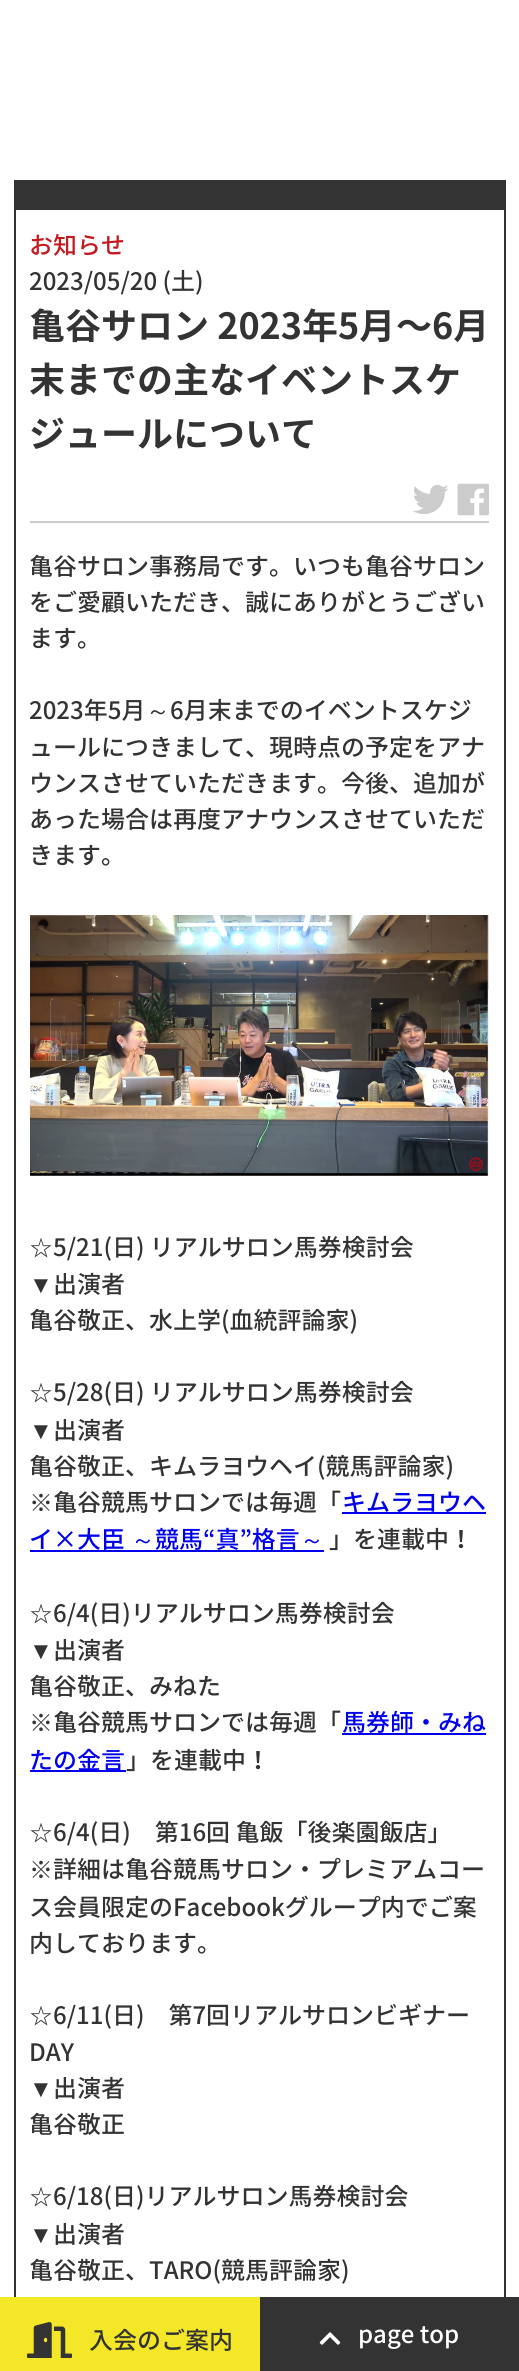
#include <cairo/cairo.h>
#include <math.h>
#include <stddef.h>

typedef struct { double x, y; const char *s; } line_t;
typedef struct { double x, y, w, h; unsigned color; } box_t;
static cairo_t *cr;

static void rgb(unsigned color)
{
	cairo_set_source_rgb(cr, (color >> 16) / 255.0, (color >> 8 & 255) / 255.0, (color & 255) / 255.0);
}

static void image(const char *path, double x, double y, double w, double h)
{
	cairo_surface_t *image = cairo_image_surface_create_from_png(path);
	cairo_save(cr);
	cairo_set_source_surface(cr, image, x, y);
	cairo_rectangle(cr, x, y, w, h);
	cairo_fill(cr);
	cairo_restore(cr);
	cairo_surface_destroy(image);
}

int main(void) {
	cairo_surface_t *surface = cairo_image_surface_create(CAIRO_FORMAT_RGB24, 519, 2371);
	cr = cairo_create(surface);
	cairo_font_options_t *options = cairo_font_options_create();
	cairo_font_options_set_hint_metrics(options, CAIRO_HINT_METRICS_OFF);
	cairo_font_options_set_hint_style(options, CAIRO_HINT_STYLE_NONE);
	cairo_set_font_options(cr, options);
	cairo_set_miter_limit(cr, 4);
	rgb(0xffffff);
	cairo_paint(cr);
	{
		static const box_t items[] = {
			{16, 180, 488, 30, 0x333333},
			{504, 180, 2, 2117, 0x333333},
			{14, 180, 2, 2117, 0x333333},
			{30, 521, 459, 2, 0xcccccc},
		};
		for (size_t i = 0; i < sizeof items / sizeof *items; i++) {
			rgb(items[i].color);
			cairo_rectangle(cr, items[i].x, items[i].y, items[i].w, items[i].h);
			cairo_fill(cr);
		}
	}
	image("img/1.png", 413, 484, 36, 31);
	image("img/2.png", 457, 483, 32, 33);
	image("img/3.png", 30, 915, 459, 261);
	{
		static const box_t items[] = {
			{342, 1512, 144, 2, 0x0000ee},
			{30, 1550, 294, 2, 0x0000ee},
			{342, 1733, 144, 2, 0x0000ee},
			{30, 1770, 96, 2, 0x0000ee},
			{0, 2297, 260, 74, 0xf3e727},
		};
		for (size_t i = 0; i < sizeof items / sizeof *items; i++) {
			rgb(items[i].color);
			cairo_rectangle(cr, items[i].x, items[i].y, items[i].w, items[i].h);
			cairo_fill(cr);
		}
	}
	image("img/4.png", 27, 2322, 45, 36);
	rgb(0x333333);
	cairo_rectangle(cr, 260, 2297, 259, 74);
	cairo_fill(cr);
	image("img/5.png", 319, 2332, 22, 13);
	cairo_select_font_face(cr, "Noto Sans JP Medium", CAIRO_FONT_SLANT_NORMAL, CAIRO_FONT_WEIGHT_NORMAL);
	cairo_set_font_size(cr, 24);
	rgb(0xc31a1f);
	cairo_move_to(cr, 29, 254);
	cairo_show_text(cr, "お知らせ");
	rgb(0x333333);
	cairo_move_to(cr, 29, 290);
	cairo_show_text(cr, "2023/05/20 (土)");
	cairo_select_font_face(cr, "Noto Sans JP", CAIRO_FONT_SLANT_NORMAL, CAIRO_FONT_WEIGHT_BOLD);
	cairo_set_font_size(cr, 36);
	cairo_move_to(cr, 29, 339);
	cairo_show_text(cr, "亀谷サロン 2023年5月");
	cairo_select_font_face(cr, "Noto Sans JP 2", CAIRO_FONT_SLANT_NORMAL, CAIRO_FONT_WEIGHT_BOLD);
	cairo_move_to(cr, 396, 339);
	cairo_show_text(cr, "～");
	cairo_select_font_face(cr, "Noto Sans JP", CAIRO_FONT_SLANT_NORMAL, CAIRO_FONT_WEIGHT_BOLD);
	{
		static const line_t items[] = {
			{432, 339, "6月"},
			{29, 393, "末までの主なイベントスケ"},
			{29, 447, "ジュールについて"},
		};
		for (size_t i = 0; i < sizeof items / sizeof *items; i++) {
			cairo_move_to(cr, items[i].x, items[i].y);
			cairo_show_text(cr, items[i].s);
		}
	}
	cairo_select_font_face(cr, "Noto Sans JP Medium", CAIRO_FONT_SLANT_NORMAL, CAIRO_FONT_WEIGHT_NORMAL);
	cairo_set_font_size(cr, 24);
	{
		static const line_t items[] = {
			{29, 575, "亀谷サロン事務局です。いつも亀谷サロン"},
			{29, 611, "をご愛顧いただき、誠にありがとうござい"},
			{29, 647, "ます。"},
			{29, 719, "2023年5月"},
		};
		for (size_t i = 0; i < sizeof items / sizeof *items; i++) {
			cairo_move_to(cr, items[i].x, items[i].y);
			cairo_show_text(cr, items[i].s);
		}
	}
	cairo_select_font_face(cr, "WenQuanYi Zen Hei Medium", CAIRO_FONT_SLANT_NORMAL, CAIRO_FONT_WEIGHT_NORMAL);
	cairo_move_to(cr, 146, 719);
	cairo_show_text(cr, "～");
	cairo_select_font_face(cr, "Noto Sans JP Medium", CAIRO_FONT_SLANT_NORMAL, CAIRO_FONT_WEIGHT_NORMAL);
	{
		static const line_t items[] = {
			{170, 719, "6月末までのイベントスケジ"},
			{29, 756, "ュールにつきまして、現時点の予定をアナ"},
			{29, 792, "ウンスさせていただきます。今後、追加が"},
			{29, 828, "あった場合は再度アナウンスさせていただ"},
			{29, 864, "きます。"},
		};
		for (size_t i = 0; i < sizeof items / sizeof *items; i++) {
			cairo_move_to(cr, items[i].x, items[i].y);
			cairo_show_text(cr, items[i].s);
		}
	}
	cairo_select_font_face(cr, "WenQuanYi Zen Hei Medium", CAIRO_FONT_SLANT_NORMAL, CAIRO_FONT_WEIGHT_NORMAL);
	cairo_move_to(cr, 29, 1256);
	cairo_show_text(cr, "☆");
	cairo_select_font_face(cr, "Noto Sans JP Medium", CAIRO_FONT_SLANT_NORMAL, CAIRO_FONT_WEIGHT_NORMAL);
	cairo_move_to(cr, 53, 1256);
	cairo_show_text(cr, "5/21(日) リアルサロン馬券検討会");
	cairo_select_font_face(cr, "Liberation Sans", CAIRO_FONT_SLANT_NORMAL, CAIRO_FONT_WEIGHT_NORMAL);
	cairo_move_to(cr, 29, 1293);
	cairo_show_text(cr, "▼");
	cairo_select_font_face(cr, "Noto Sans JP Medium", CAIRO_FONT_SLANT_NORMAL, CAIRO_FONT_WEIGHT_NORMAL);
	cairo_move_to(cr, 53, 1293);
	cairo_show_text(cr, "出演者");
	cairo_move_to(cr, 29, 1329);
	cairo_show_text(cr, "亀谷敬正、水上学(血統評論家)");
	cairo_select_font_face(cr, "WenQuanYi Zen Hei Medium", CAIRO_FONT_SLANT_NORMAL, CAIRO_FONT_WEIGHT_NORMAL);
	cairo_move_to(cr, 29, 1401);
	cairo_show_text(cr, "☆");
	cairo_select_font_face(cr, "Noto Sans JP Medium", CAIRO_FONT_SLANT_NORMAL, CAIRO_FONT_WEIGHT_NORMAL);
	cairo_move_to(cr, 53, 1401);
	cairo_show_text(cr, "5/28(日) リアルサロン馬券検討会");
	cairo_select_font_face(cr, "Liberation Sans", CAIRO_FONT_SLANT_NORMAL, CAIRO_FONT_WEIGHT_NORMAL);
	cairo_move_to(cr, 29, 1439);
	cairo_show_text(cr, "▼");
	cairo_select_font_face(cr, "Noto Sans JP Medium", CAIRO_FONT_SLANT_NORMAL, CAIRO_FONT_WEIGHT_NORMAL);
	cairo_move_to(cr, 53, 1439);
	cairo_show_text(cr, "出演者");
	cairo_move_to(cr, 29, 1475);
	cairo_show_text(cr, "亀谷敬正、キムラヨウヘイ(競馬評論家)");
	cairo_select_font_face(cr, "WenQuanYi Zen Hei Medium", CAIRO_FONT_SLANT_NORMAL, CAIRO_FONT_WEIGHT_NORMAL);
	cairo_move_to(cr, 29, 1511);
	cairo_show_text(cr, "※");
	cairo_select_font_face(cr, "Noto Sans JP Medium", CAIRO_FONT_SLANT_NORMAL, CAIRO_FONT_WEIGHT_NORMAL);
	cairo_move_to(cr, 53, 1511);
	cairo_show_text(cr, "亀谷競馬サロンでは毎週「");
	rgb(0x0000ee);
	cairo_move_to(cr, 342, 1511);
	cairo_show_text(cr, "キムラヨウヘ");
	cairo_move_to(cr, 29, 1548);
	cairo_show_text(cr, "イ×大臣");
	cairo_select_font_face(cr, "WenQuanYi Zen Hei Medium", CAIRO_FONT_SLANT_NORMAL, CAIRO_FONT_WEIGHT_NORMAL);
	cairo_move_to(cr, 131, 1548);
	cairo_show_text(cr, "～");
	cairo_select_font_face(cr, "Noto Sans JP Medium", CAIRO_FONT_SLANT_NORMAL, CAIRO_FONT_WEIGHT_NORMAL);
	cairo_move_to(cr, 155, 1548);
	cairo_show_text(cr, "競馬“真”格言");
	cairo_select_font_face(cr, "WenQuanYi Zen Hei Medium", CAIRO_FONT_SLANT_NORMAL, CAIRO_FONT_WEIGHT_NORMAL);
	cairo_move_to(cr, 300, 1548);
	cairo_show_text(cr, "～");
	cairo_select_font_face(cr, "Noto Sans JP Medium", CAIRO_FONT_SLANT_NORMAL, CAIRO_FONT_WEIGHT_NORMAL);
	rgb(0x333333);
	cairo_move_to(cr, 329, 1548);
	cairo_show_text(cr, "」を連載中！");
	cairo_select_font_face(cr, "WenQuanYi Zen Hei Medium", CAIRO_FONT_SLANT_NORMAL, CAIRO_FONT_WEIGHT_NORMAL);
	cairo_move_to(cr, 29, 1622);
	cairo_show_text(cr, "☆");
	cairo_select_font_face(cr, "Noto Sans JP Medium", CAIRO_FONT_SLANT_NORMAL, CAIRO_FONT_WEIGHT_NORMAL);
	cairo_move_to(cr, 53, 1622);
	cairo_show_text(cr, "6/4(日)リアルサロン馬券検討会");
	cairo_select_font_face(cr, "Liberation Sans", CAIRO_FONT_SLANT_NORMAL, CAIRO_FONT_WEIGHT_NORMAL);
	cairo_move_to(cr, 29, 1659);
	cairo_show_text(cr, "▼");
	cairo_select_font_face(cr, "Noto Sans JP Medium", CAIRO_FONT_SLANT_NORMAL, CAIRO_FONT_WEIGHT_NORMAL);
	cairo_move_to(cr, 53, 1659);
	cairo_show_text(cr, "出演者");
	cairo_move_to(cr, 29, 1695);
	cairo_show_text(cr, "亀谷敬正、みねた");
	cairo_select_font_face(cr, "WenQuanYi Zen Hei Medium", CAIRO_FONT_SLANT_NORMAL, CAIRO_FONT_WEIGHT_NORMAL);
	cairo_move_to(cr, 29, 1731);
	cairo_show_text(cr, "※");
	cairo_select_font_face(cr, "Noto Sans JP Medium", CAIRO_FONT_SLANT_NORMAL, CAIRO_FONT_WEIGHT_NORMAL);
	cairo_move_to(cr, 53, 1731);
	cairo_show_text(cr, "亀谷競馬サロンでは毎週「");
	rgb(0x0000ee);
	cairo_move_to(cr, 342, 1731);
	cairo_show_text(cr, "馬券師・みね");
	cairo_move_to(cr, 29, 1769);
	cairo_show_text(cr, "たの金言");
	rgb(0x333333);
	cairo_move_to(cr, 126, 1769);
	cairo_show_text(cr, "」を連載中！");
	cairo_select_font_face(cr, "WenQuanYi Zen Hei Medium", CAIRO_FONT_SLANT_NORMAL, CAIRO_FONT_WEIGHT_NORMAL);
	cairo_move_to(cr, 29, 1841);
	cairo_show_text(cr, "☆");
	cairo_select_font_face(cr, "Noto Sans JP Medium", CAIRO_FONT_SLANT_NORMAL, CAIRO_FONT_WEIGHT_NORMAL);
	cairo_move_to(cr, 53, 1841);
	cairo_show_text(cr, "6/4(日)　第16回 亀飯「後楽園飯店」");
	cairo_select_font_face(cr, "WenQuanYi Zen Hei Medium", CAIRO_FONT_SLANT_NORMAL, CAIRO_FONT_WEIGHT_NORMAL);
	cairo_move_to(cr, 29, 1878);
	cairo_show_text(cr, "※");
	cairo_select_font_face(cr, "Noto Sans JP Medium", CAIRO_FONT_SLANT_NORMAL, CAIRO_FONT_WEIGHT_NORMAL);
	{
		static const line_t items[] = {
			{53, 1878, "詳細は亀谷競馬サロン・プレミアムコー"},
			{29, 1916, "ス会員限定のFacebookグループ内でご案"},
			{29, 1952, "内しております。"},
		};
		for (size_t i = 0; i < sizeof items / sizeof *items; i++) {
			cairo_move_to(cr, items[i].x, items[i].y);
			cairo_show_text(cr, items[i].s);
		}
	}
	cairo_select_font_face(cr, "WenQuanYi Zen Hei Medium", CAIRO_FONT_SLANT_NORMAL, CAIRO_FONT_WEIGHT_NORMAL);
	cairo_move_to(cr, 29, 2024);
	cairo_show_text(cr, "☆");
	cairo_select_font_face(cr, "Noto Sans JP Medium", CAIRO_FONT_SLANT_NORMAL, CAIRO_FONT_WEIGHT_NORMAL);
	cairo_move_to(cr, 53, 2024);
	cairo_show_text(cr, "6/11(日)　第7回リアルサロンビギナー");
	cairo_move_to(cr, 29, 2061);
	cairo_show_text(cr, "DAY");
	cairo_select_font_face(cr, "Liberation Sans", CAIRO_FONT_SLANT_NORMAL, CAIRO_FONT_WEIGHT_NORMAL);
	cairo_move_to(cr, 29, 2097);
	cairo_show_text(cr, "▼");
	cairo_select_font_face(cr, "Noto Sans JP Medium", CAIRO_FONT_SLANT_NORMAL, CAIRO_FONT_WEIGHT_NORMAL);
	cairo_move_to(cr, 53, 2097);
	cairo_show_text(cr, "出演者");
	cairo_move_to(cr, 29, 2133);
	cairo_show_text(cr, "亀谷敬正");
	cairo_select_font_face(cr, "WenQuanYi Zen Hei Medium", CAIRO_FONT_SLANT_NORMAL, CAIRO_FONT_WEIGHT_NORMAL);
	cairo_move_to(cr, 29, 2205);
	cairo_show_text(cr, "☆");
	cairo_select_font_face(cr, "Noto Sans JP Medium", CAIRO_FONT_SLANT_NORMAL, CAIRO_FONT_WEIGHT_NORMAL);
	cairo_move_to(cr, 53, 2205);
	cairo_show_text(cr, "6/18(日)リアルサロン馬券検討会");
	cairo_select_font_face(cr, "Liberation Sans", CAIRO_FONT_SLANT_NORMAL, CAIRO_FONT_WEIGHT_NORMAL);
	cairo_move_to(cr, 29, 2243);
	cairo_show_text(cr, "▼");
	cairo_select_font_face(cr, "Noto Sans JP Medium", CAIRO_FONT_SLANT_NORMAL, CAIRO_FONT_WEIGHT_NORMAL);
	{
		static const line_t items[] = {
			{53, 2243, "出演者"},
			{29, 2279, "亀谷敬正、TARO(競馬評論家)"},
			{89, 2349, "入会のご案内"},
		};
		for (size_t i = 0; i < sizeof items / sizeof *items; i++) {
			cairo_move_to(cr, items[i].x, items[i].y);
			cairo_show_text(cr, items[i].s);
		}
	}
	rgb(0xffffff);
	cairo_move_to(cr, 358, 2343);
	cairo_show_text(cr, "page top");
	cairo_surface_write_to_png(surface, "page.png");
	cairo_font_options_destroy(options);
	cairo_destroy(cr);
	cairo_surface_destroy(surface);
	return 0;
}
